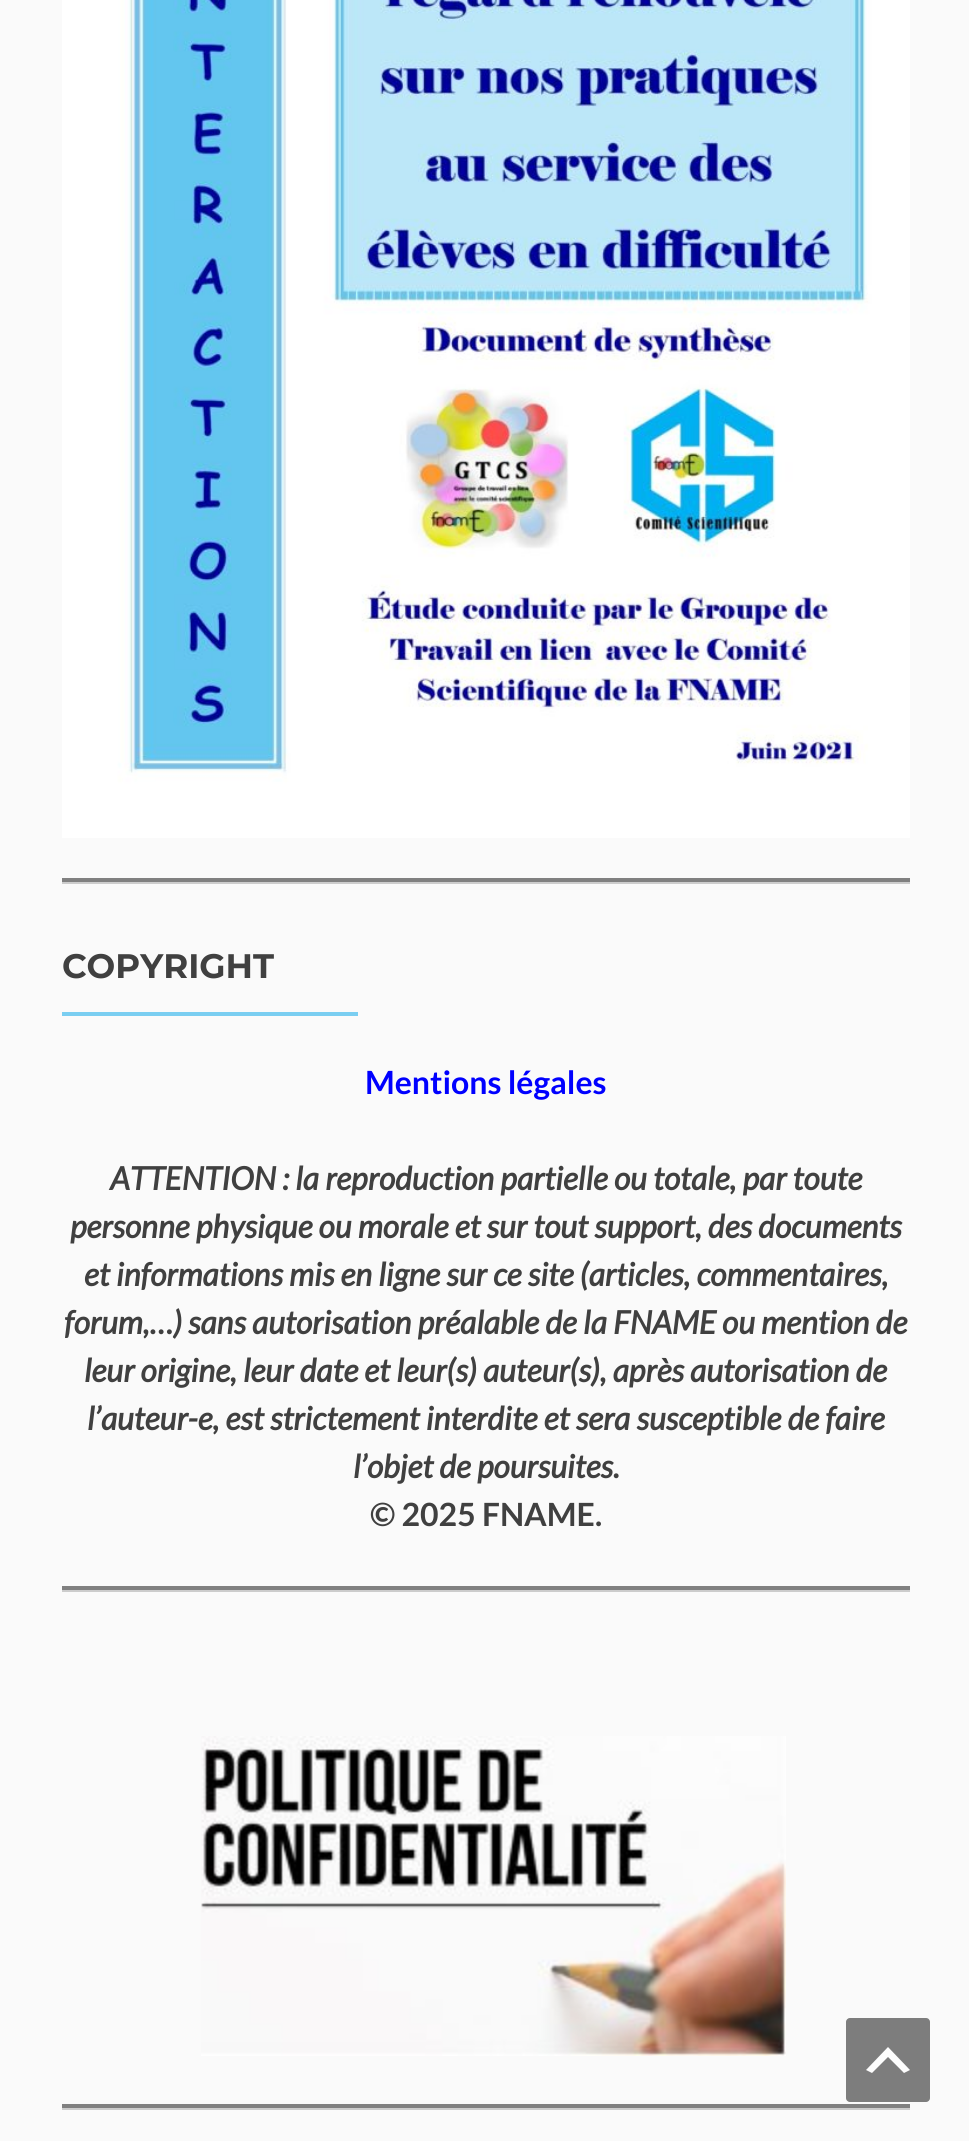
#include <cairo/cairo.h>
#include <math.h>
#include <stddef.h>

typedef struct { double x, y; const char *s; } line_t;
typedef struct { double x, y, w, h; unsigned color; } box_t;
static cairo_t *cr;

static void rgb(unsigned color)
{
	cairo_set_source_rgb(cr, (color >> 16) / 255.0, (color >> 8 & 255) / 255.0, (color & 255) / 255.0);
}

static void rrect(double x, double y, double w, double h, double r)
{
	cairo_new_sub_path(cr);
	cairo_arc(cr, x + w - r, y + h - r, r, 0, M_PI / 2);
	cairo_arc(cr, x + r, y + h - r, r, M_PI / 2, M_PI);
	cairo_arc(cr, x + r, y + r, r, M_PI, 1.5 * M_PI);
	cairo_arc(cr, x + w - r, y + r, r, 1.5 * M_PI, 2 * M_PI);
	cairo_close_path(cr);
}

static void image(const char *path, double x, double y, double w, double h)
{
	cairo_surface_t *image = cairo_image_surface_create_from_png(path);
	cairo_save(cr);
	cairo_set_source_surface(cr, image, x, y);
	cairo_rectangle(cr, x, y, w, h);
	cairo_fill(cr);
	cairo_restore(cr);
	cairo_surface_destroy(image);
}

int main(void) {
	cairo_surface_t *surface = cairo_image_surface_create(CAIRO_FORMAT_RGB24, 969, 2141);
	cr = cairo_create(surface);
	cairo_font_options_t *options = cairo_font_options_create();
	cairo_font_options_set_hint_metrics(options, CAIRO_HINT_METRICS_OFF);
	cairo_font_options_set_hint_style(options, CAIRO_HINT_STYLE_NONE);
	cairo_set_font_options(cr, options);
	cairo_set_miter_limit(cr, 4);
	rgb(0xfafafa);
	cairo_paint(cr);
	image("img/1.png", 62, 0, 848, 838);
	{
		static const box_t items[] = {
			{62, 882, 848, 2, 0xcccccc},
			{62, 878, 848, 4, 0x808080},
			{62, 1012, 296, 4, 0x7acef1},
			{62, 1590, 848, 2, 0xcccccc},
			{62, 1586, 848, 4, 0x808080},
		};
		for (size_t i = 0; i < sizeof items / sizeof *items; i++) {
			rgb(items[i].color);
			cairo_rectangle(cr, items[i].x, items[i].y, items[i].w, items[i].h);
			cairo_fill(cr);
		}
	}
	image("img/2.png", 201, 1736, 585, 320);
	rgb(0xcccccc);
	cairo_rectangle(cr, 62, 2108, 848, 2);
	cairo_fill(cr);
	rgb(0x808080);
	cairo_rectangle(cr, 62, 2104, 848, 4);
	cairo_fill(cr);
	rgb(0x7d7d7d);
	rrect(846, 2018, 84, 84, 4);
	cairo_fill(cr);
	rgb(0xfdfdfd);
	cairo_new_path(cr);
	cairo_move_to(cr, 904, 2073);
	cairo_line_to(cr, 888, 2057);
	cairo_line_to(cr, 872, 2073);
	cairo_line_to(cr, 866, 2070);
	cairo_line_to(cr, 888, 2047);
	cairo_line_to(cr, 910, 2070);
	cairo_close_path(cr);
	cairo_fill(cr);
	cairo_select_font_face(cr, "Montserrat", CAIRO_FONT_SLANT_NORMAL, CAIRO_FONT_WEIGHT_BOLD);
	cairo_set_font_size(cr, 34);
	rgb(0x404040);
	cairo_move_to(cr, 62, 978);
	cairo_show_text(cr, "COPYRIGHT");
	cairo_select_font_face(cr, "Lato", CAIRO_FONT_SLANT_NORMAL, CAIRO_FONT_WEIGHT_BOLD);
	cairo_set_font_size(cr, 32);
	rgb(0x0000ff);
	cairo_move_to(cr, 365, 1094);
	cairo_show_text(cr, "Mentions légales");
	cairo_select_font_face(cr, "Lato", CAIRO_FONT_SLANT_ITALIC, CAIRO_FONT_WEIGHT_BOLD);
	rgb(0x404040);
	{
		static const line_t items[] = {
			{110, 1190, "ATTENTION : la reproduction partielle ou totale, par toute"},
			{70, 1238, "personne physique ou morale et sur tout support, des documents"},
			{84, 1286, "et informations mis en ligne sur ce site (articles, commentaires,"},
			{64, 1334, "forum,…) sans autorisation préalable de la FNAME ou mention de"},
			{84, 1382, "leur origine, leur date et leur(s) auteur(s), après autorisation de"},
			{87, 1430, "l’auteur-e, est strictement interdite et sera susceptible de faire"},
			{353, 1478, "l’objet de poursuites."},
		};
		for (size_t i = 0; i < sizeof items / sizeof *items; i++) {
			cairo_move_to(cr, items[i].x, items[i].y);
			cairo_show_text(cr, items[i].s);
		}
	}
	cairo_select_font_face(cr, "Lato", CAIRO_FONT_SLANT_NORMAL, CAIRO_FONT_WEIGHT_BOLD);
	cairo_move_to(cr, 370, 1526);
	cairo_show_text(cr, "© 2025 FNAME.");
	cairo_surface_write_to_png(surface, "page.png");
	cairo_font_options_destroy(options);
	cairo_destroy(cr);
	cairo_surface_destroy(surface);
	return 0;
}
